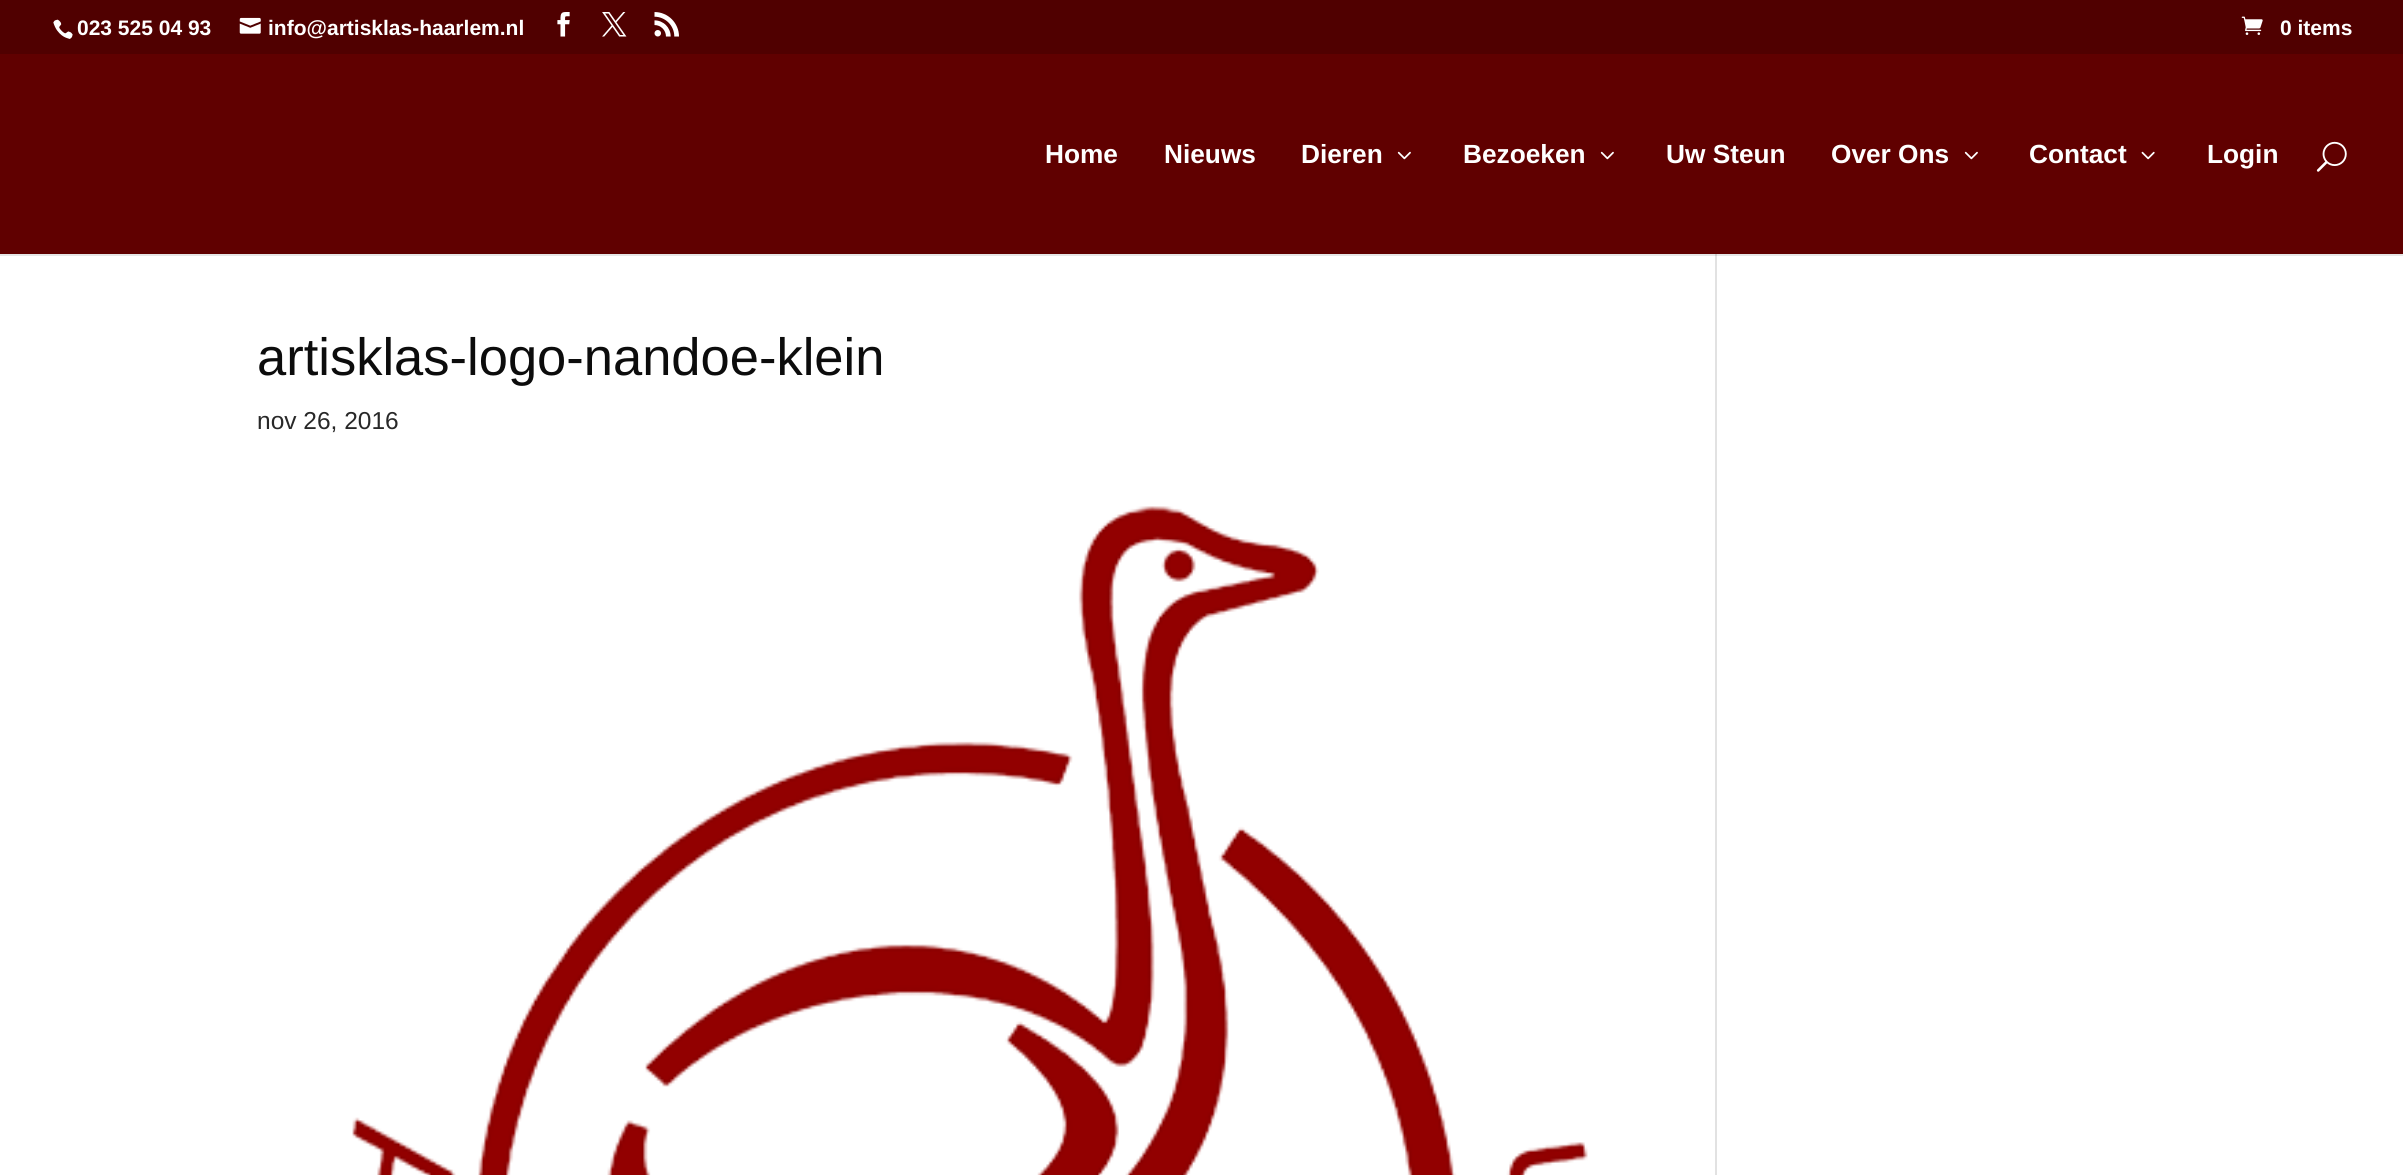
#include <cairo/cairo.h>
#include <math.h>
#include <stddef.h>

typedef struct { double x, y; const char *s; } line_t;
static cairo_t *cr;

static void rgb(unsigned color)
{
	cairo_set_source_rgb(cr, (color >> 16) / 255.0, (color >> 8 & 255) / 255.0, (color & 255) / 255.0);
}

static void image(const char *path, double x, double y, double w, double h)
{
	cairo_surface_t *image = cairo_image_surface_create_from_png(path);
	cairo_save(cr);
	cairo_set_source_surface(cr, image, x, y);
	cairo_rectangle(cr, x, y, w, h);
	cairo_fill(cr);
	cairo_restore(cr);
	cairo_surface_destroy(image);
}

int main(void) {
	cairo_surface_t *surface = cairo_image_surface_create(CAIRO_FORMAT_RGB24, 2403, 1175);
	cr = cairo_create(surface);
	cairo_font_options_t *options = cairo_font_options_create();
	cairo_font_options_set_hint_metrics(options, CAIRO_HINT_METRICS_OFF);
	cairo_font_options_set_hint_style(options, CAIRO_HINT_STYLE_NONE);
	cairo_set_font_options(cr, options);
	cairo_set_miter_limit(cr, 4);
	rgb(0xffffff);
	cairo_paint(cr);
	rgb(0x500000);
	cairo_rectangle(cr, 0, 0, 2403, 54);
	cairo_fill(cr);
	image("img/1.png", 53, 19, 20, 20);
	image("img/2.png", 239, 17, 22, 17);
	image("img/3.png", 557, 12, 13, 25);
	image("img/4.png", 602, 12, 25, 25);
	image("img/5.png", 654, 12, 25, 25);
	image("img/6.png", 2241, 16, 22, 19);
	rgb(0xe2e2e2);
	cairo_rectangle(cr, 1715, 254, 2, 921);
	cairo_fill(cr);
	cairo_set_source_rgba(cr, 0, 0, 0, 0.1);
	cairo_new_path(cr);
	cairo_move_to(cr, 0, 254);
	cairo_line_to(cr, 0, 256);
	cairo_line_to(cr, 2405, 256);
	cairo_line_to(cr, 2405, 56);
	cairo_line_to(cr, 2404, 56);
	cairo_line_to(cr, 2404, 254);
	cairo_close_path(cr);
	cairo_fill(cr);
	rgb(0x600000);
	cairo_rectangle(cr, 0, 54, 2403, 200);
	cairo_fill(cr);
	image("img/7.png", 1397, 151, 14, 9);
	image("img/7.png", 1600, 151, 14, 9);
	image("img/7.png", 1964, 151, 14, 9);
	image("img/8.png", 2141, 151, 14, 9);
	image("img/9.png", 2316, 141, 31, 31);
	image("img/10.png", 352, 506, 1236, 669);
	cairo_select_font_face(cr, "Liberation Sans", CAIRO_FONT_SLANT_NORMAL, CAIRO_FONT_WEIGHT_BOLD);
	cairo_set_font_size(cr, 21);
	rgb(0xffffff);
	{
		static const line_t items[] = {
			{77, 35, "023 525 04 93"},
			{268, 35, "info@artisklas-haarlem.nl"},
			{2280, 35, "0 items"},
		};
		for (size_t i = 0; i < sizeof items / sizeof *items; i++) {
			cairo_move_to(cr, items[i].x, items[i].y);
			cairo_show_text(cr, items[i].s);
		}
	}
	cairo_set_font_size(cr, 26.25);
	{
		static const line_t items[] = {
			{1045, 163, "Home"},
			{1164, 163, "Nieuws"},
			{1301, 163, "Dieren"},
			{1463, 163, "Bezoeken"},
			{1666, 163, "Uw Steun"},
			{1831, 163, "Over Ons"},
			{2029, 163, "Contact"},
			{2207, 163, "Login"},
		};
		for (size_t i = 0; i < sizeof items / sizeof *items; i++) {
			cairo_move_to(cr, items[i].x, items[i].y);
			cairo_show_text(cr, items[i].s);
		}
	}
	cairo_select_font_face(cr, "Liberation Sans", CAIRO_FONT_SLANT_NORMAL, CAIRO_FONT_WEIGHT_NORMAL);
	cairo_set_font_size(cr, 52.5);
	rgb(0x0c0c0c);
	cairo_move_to(cr, 257, 375);
	cairo_show_text(cr, "artisklas-logo-nandoe-klein");
	cairo_set_font_size(cr, 24.5);
	rgb(0x282828);
	cairo_move_to(cr, 257, 429);
	cairo_show_text(cr, "nov 26, 2016");
	cairo_surface_write_to_png(surface, "page.png");
	cairo_font_options_destroy(options);
	cairo_destroy(cr);
	cairo_surface_destroy(surface);
	return 0;
}
